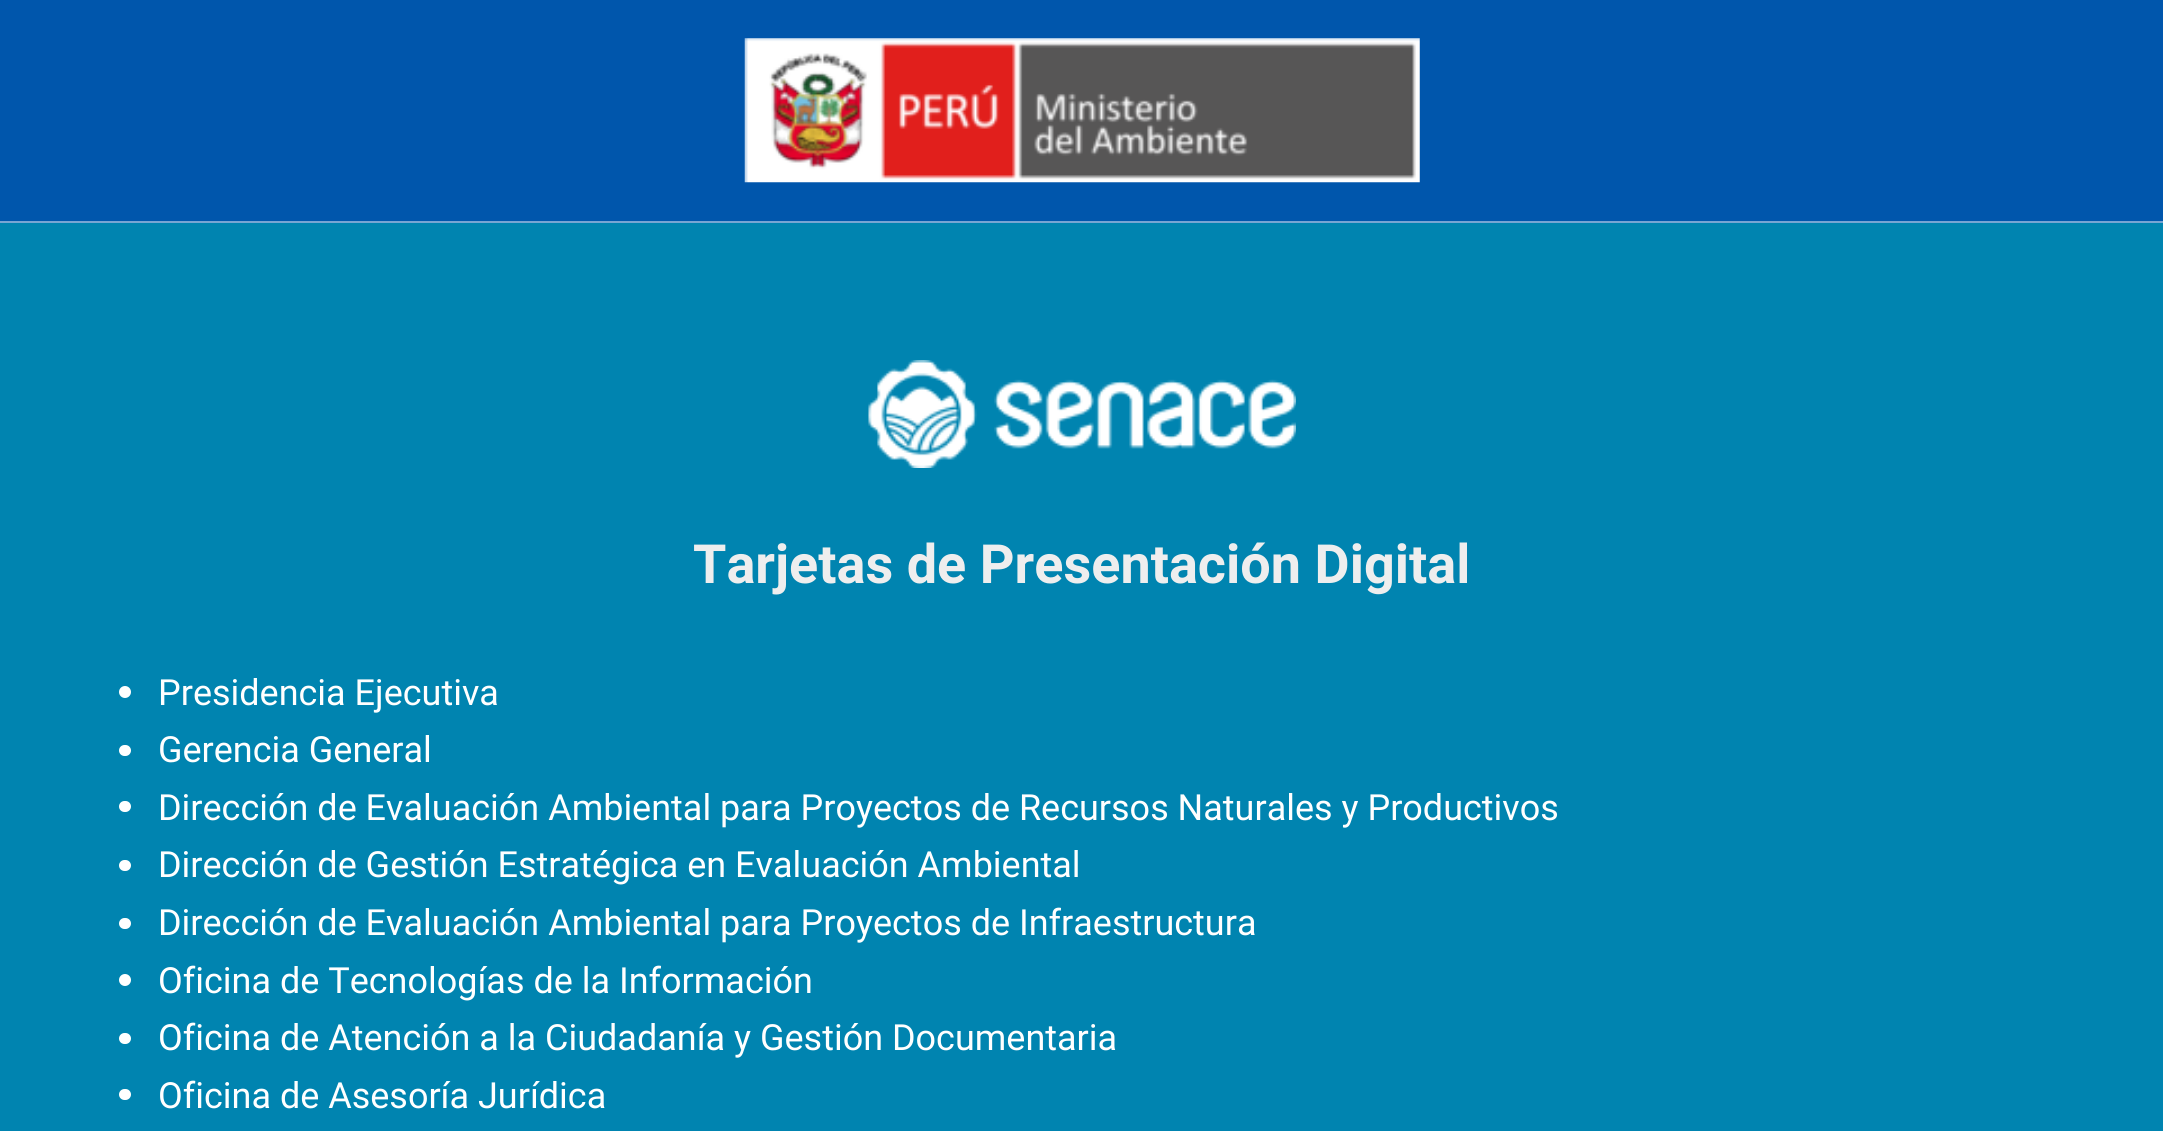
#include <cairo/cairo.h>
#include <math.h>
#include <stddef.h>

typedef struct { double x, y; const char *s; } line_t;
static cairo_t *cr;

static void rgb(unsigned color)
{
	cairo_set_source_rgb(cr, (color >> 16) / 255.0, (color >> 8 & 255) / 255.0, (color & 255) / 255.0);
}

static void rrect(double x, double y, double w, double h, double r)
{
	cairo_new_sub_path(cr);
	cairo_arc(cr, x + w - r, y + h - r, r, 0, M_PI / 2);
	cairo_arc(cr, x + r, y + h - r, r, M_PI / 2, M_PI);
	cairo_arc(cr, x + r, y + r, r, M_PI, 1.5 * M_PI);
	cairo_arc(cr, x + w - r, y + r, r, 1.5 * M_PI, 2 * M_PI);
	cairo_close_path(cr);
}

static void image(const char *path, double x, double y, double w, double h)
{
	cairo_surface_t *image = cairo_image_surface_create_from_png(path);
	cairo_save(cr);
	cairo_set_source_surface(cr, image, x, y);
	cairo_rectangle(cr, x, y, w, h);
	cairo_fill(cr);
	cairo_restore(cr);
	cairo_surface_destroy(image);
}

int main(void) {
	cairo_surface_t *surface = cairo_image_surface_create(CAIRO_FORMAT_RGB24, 2163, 1131);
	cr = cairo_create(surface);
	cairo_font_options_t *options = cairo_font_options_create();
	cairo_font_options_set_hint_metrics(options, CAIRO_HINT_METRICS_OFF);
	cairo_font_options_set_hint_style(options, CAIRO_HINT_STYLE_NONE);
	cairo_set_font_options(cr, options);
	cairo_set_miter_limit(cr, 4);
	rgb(0x0056ac);
	cairo_paint(cr);
	rgb(0x78a5d3);
	cairo_rectangle(cr, 0, 221, 2163, 2);
	cairo_fill(cr);
	image("img/1.png", 744, 38, 676, 145);
	rgb(0x0084b0);
	cairo_rectangle(cr, 0, 223, 2163, 908);
	cairo_fill(cr);
	image("img/2.png", 868, 360, 428, 108);
	rgb(0xffffff);
	cairo_arc(cr, 125, 692, 6, 0, 2 * M_PI);
	cairo_fill(cr);
	rrect(119, 745, 12, 11, 5.5);
	cairo_fill(cr);
	rrect(119, 801, 12, 11, 5.5);
	cairo_fill(cr);
	rrect(119, 860, 12, 11, 5.5);
	cairo_fill(cr);
	rrect(119, 918, 12, 11, 5.5);
	cairo_fill(cr);
	cairo_arc(cr, 125, 980, 6, 0, 2 * M_PI);
	cairo_fill(cr);
	rrect(119, 1033, 12, 11, 5.5);
	cairo_fill(cr);
	rrect(119, 1089, 12, 11, 5.5);
	cairo_fill(cr);
	cairo_select_font_face(cr, "Roboto", CAIRO_FONT_SLANT_NORMAL, CAIRO_FONT_WEIGHT_BOLD);
	cairo_set_font_size(cr, 54);
	rgb(0xeeeeee);
	cairo_move_to(cr, 693, 583);
	cairo_show_text(cr, "Tarjetas de Presentación Digital");
	cairo_select_font_face(cr, "Roboto", CAIRO_FONT_SLANT_NORMAL, CAIRO_FONT_WEIGHT_NORMAL);
	cairo_set_font_size(cr, 36);
	rgb(0xffffff);
	{
		static const line_t items[] = {
			{158, 705, "Presidencia Ejecutiva"},
			{158, 762, "Gerencia General"},
			{158, 820, "Dirección de Evaluación Ambiental para Proyectos de Recursos Naturales y Productivos"},
			{158, 877, "Dirección de Gestión Estratégica en Evaluación Ambiental"},
			{158, 935, "Dirección de Evaluación Ambiental para Proyectos de Infraestructura"},
			{158, 993, "Oficina de Tecnologías de la Información"},
			{158, 1050, "Oficina de Atención a la Ciudadanía y Gestión Documentaria"},
			{158, 1108, "Oficina de Asesoría Jurídica"},
		};
		for (size_t i = 0; i < sizeof items / sizeof *items; i++) {
			cairo_move_to(cr, items[i].x, items[i].y);
			cairo_show_text(cr, items[i].s);
		}
	}
	cairo_surface_write_to_png(surface, "page.png");
	cairo_font_options_destroy(options);
	cairo_destroy(cr);
	cairo_surface_destroy(surface);
	return 0;
}
